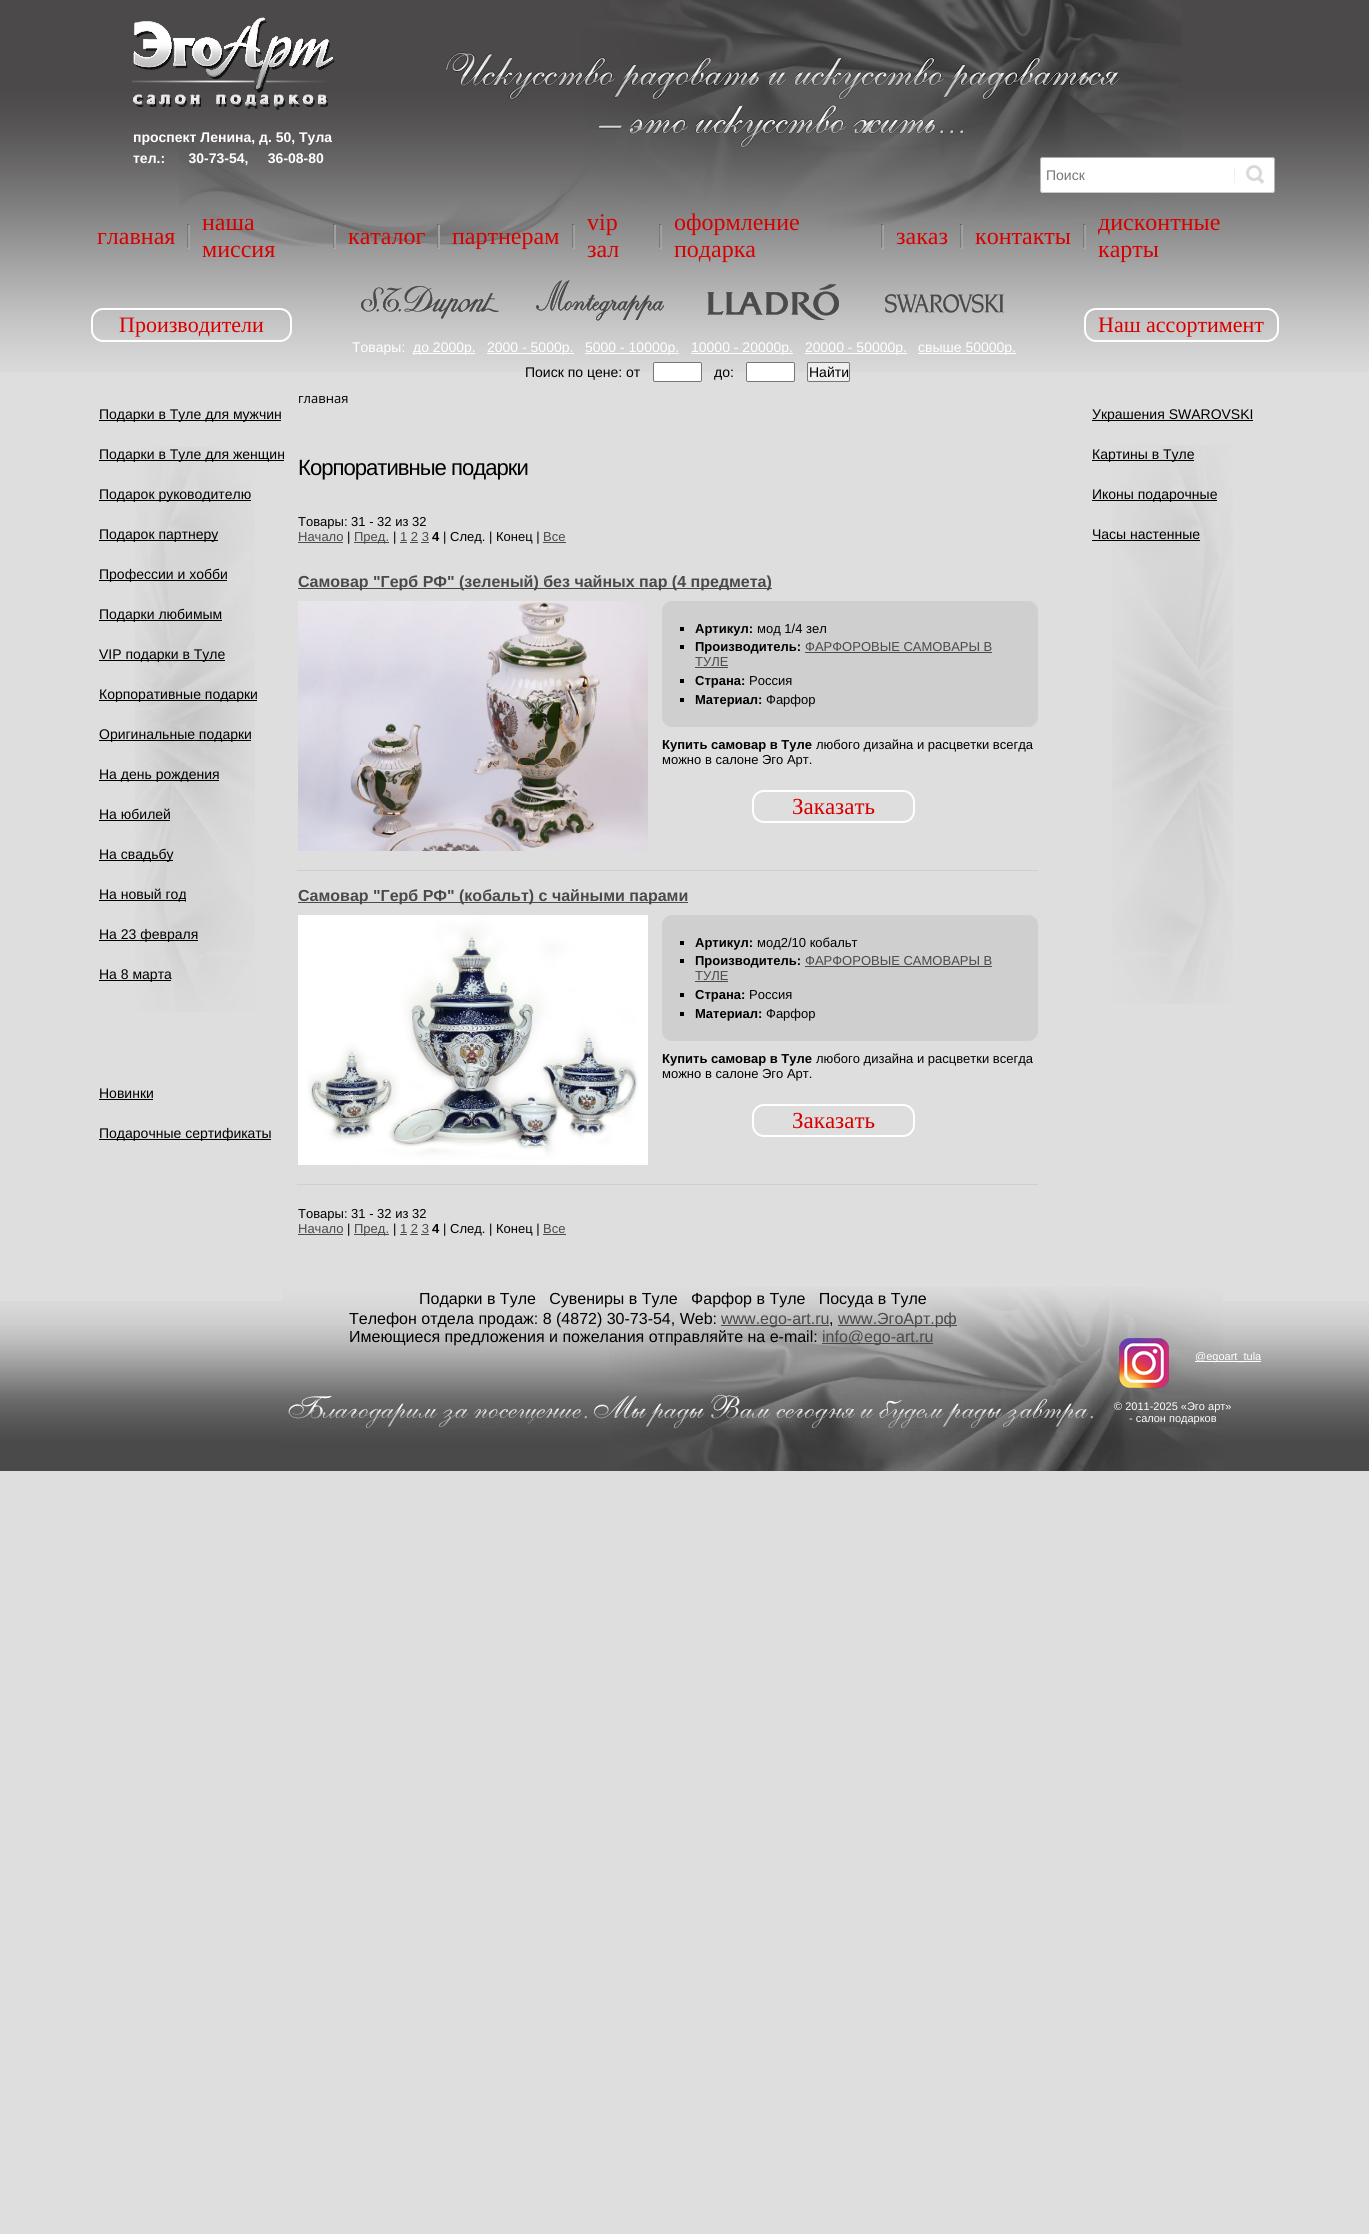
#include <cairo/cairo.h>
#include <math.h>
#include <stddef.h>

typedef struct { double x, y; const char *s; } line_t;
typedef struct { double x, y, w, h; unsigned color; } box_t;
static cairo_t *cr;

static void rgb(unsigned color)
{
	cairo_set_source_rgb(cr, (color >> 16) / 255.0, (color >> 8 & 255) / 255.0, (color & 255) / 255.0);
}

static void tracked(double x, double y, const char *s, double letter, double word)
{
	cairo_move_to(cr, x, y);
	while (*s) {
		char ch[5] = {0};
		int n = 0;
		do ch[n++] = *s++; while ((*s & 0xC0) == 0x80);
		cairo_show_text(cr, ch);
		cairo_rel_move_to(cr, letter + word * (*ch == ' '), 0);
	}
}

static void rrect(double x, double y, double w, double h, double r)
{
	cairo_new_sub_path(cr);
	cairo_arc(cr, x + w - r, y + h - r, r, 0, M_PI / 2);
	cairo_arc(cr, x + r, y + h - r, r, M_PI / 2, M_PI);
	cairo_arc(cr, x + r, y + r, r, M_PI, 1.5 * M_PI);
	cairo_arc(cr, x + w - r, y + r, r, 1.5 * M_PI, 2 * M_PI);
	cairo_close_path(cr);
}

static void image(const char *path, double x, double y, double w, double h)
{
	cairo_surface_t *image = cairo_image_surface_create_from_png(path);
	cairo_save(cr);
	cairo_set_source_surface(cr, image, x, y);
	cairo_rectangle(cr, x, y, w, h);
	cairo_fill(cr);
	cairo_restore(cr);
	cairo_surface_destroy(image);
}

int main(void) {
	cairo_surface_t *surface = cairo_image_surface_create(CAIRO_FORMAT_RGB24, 1369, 2234);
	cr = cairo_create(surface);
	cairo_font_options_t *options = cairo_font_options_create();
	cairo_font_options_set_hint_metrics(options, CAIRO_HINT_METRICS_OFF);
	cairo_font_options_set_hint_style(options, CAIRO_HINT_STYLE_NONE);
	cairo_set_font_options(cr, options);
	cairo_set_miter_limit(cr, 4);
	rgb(0xdedede);
	cairo_paint(cr);
	image("img/1.png", 0, 0, 1369, 372);
	image("img/2.png", 179, 0, 1003, 247);
	image("img/3.png", 132, 17, 203, 93);
	rgb(0xffffff);
	rrect(1040, 157, 235, 36, 3);
	cairo_fill(cr);
	cairo_new_path(cr);
	cairo_move_to(cr, 1041, 158);
	cairo_line_to(cr, 1043, 157.5);
	cairo_line_to(cr, 1272, 157.5);
	cairo_line_to(cr, 1274, 158);
	rgb(0xaaacb1);
	cairo_set_line_width(cr, 1);
	cairo_stroke(cr);
	cairo_new_path(cr);
	cairo_move_to(cr, 1274, 158);
	cairo_curve_to(cr, 1274, 158.5, 1274.5, 159.5, 1274.5, 160);
	cairo_line_to(cr, 1274.5, 190);
	cairo_curve_to(cr, 1274.5, 190.5, 1274, 191.5, 1274, 192);
	rgb(0xb3b5b9);
	cairo_stroke(cr);
	cairo_new_path(cr);
	cairo_move_to(cr, 1274, 192);
	cairo_line_to(cr, 1272, 192.5);
	cairo_line_to(cr, 1043, 192.5);
	cairo_line_to(cr, 1041, 192);
	rgb(0xc9cbcf);
	cairo_stroke(cr);
	cairo_new_path(cr);
	cairo_move_to(cr, 1041, 192);
	cairo_curve_to(cr, 1041, 191.5, 1040.5, 190.5, 1040.5, 190);
	cairo_line_to(cr, 1040.5, 160);
	cairo_curve_to(cr, 1040.5, 159.5, 1041, 158.5, 1041, 158);
	rgb(0xb3b5b9);
	cairo_stroke(cr);
	image("img/4.png", 1234, 165, 31, 21);
	image("img/5.png", 187, 224, 3, 25);
	image("img/5.png", 333, 224, 3, 25);
	image("img/5.png", 437, 224, 3, 25);
	image("img/5.png", 572, 224, 3, 25);
	image("img/5.png", 659, 224, 3, 25);
	image("img/5.png", 881, 224, 3, 25);
	image("img/5.png", 960, 224, 3, 25);
	image("img/5.png", 1083, 224, 3, 25);
	rrect(92, 309, 199, 32, 11);
	rgb(0xffffff);
	cairo_set_line_width(cr, 2);
	cairo_stroke(cr);
	rrect(1085, 309, 193, 32, 11);
	cairo_stroke(cr);
	image("img/6.png", 361, 286, 138, 33);
	image("img/7.png", 536, 280, 128, 41);
	image("img/8.png", 707, 284, 132, 36);
	image("img/9.png", 885, 294, 119, 19);
	{
		static const box_t items[] = {
			{413, 353, 62, 1, 0xffffff},
			{487, 353, 87, 1, 0xffffff},
			{585, 353, 94, 1, 0xffffff},
			{691, 353, 102, 1, 0xffffff},
			{805, 353, 102, 1, 0xffffff},
			{918, 353, 98, 1, 0xffffff},
		};
		for (size_t i = 0; i < sizeof items / sizeof *items; i++) {
			rgb(items[i].color);
			cairo_rectangle(cr, items[i].x, items[i].y, items[i].w, items[i].h);
			cairo_fill(cr);
		}
	}
	rrect(653.5, 362.5, 48, 19, 1.5);
	cairo_fill_preserve(cr);
	rgb(0x767676);
	cairo_set_line_width(cr, 1);
	cairo_stroke(cr);
	rgb(0xffffff);
	rrect(746.5, 362.5, 48, 19, 1.5);
	cairo_fill_preserve(cr);
	rgb(0x767676);
	cairo_stroke(cr);
	rgb(0xefefef);
	rrect(807.5, 362.5, 42, 19, 1.5);
	cairo_fill_preserve(cr);
	rgb(0x767676);
	cairo_stroke(cr);
	image("img/10.png", 135, 447, 120, 565);
	{
		static const box_t items[] = {
			{99, 420, 182, 1, 0x000000},
			{99, 460, 185, 1, 0x000000},
			{99, 500, 152, 1, 0x000000},
			{99, 540, 119, 1, 0x000000},
			{99, 580, 128, 1, 0x000000},
			{99, 620, 123, 1, 0x000000},
			{99, 660, 126, 1, 0x000000},
			{99, 700, 158, 1, 0x000000},
			{99, 740, 152, 1, 0x000000},
			{99, 780, 120, 1, 0x000000},
			{99, 820, 71, 1, 0x000000},
			{99, 860, 74, 1, 0x000000},
			{99, 900, 87, 1, 0x000000},
			{99, 940, 99, 1, 0x000000},
			{99, 980, 72, 1, 0x000000},
			{99, 1099, 54, 1, 0x000000},
			{99, 1139, 172, 1, 0x000000},
			{298, 542, 45, 1, 0x4b494a},
			{354, 542, 35, 1, 0x4b494a},
			{400, 542, 7, 1, 0x4b494a},
			{410, 542, 8, 1, 0x4b494a},
			{421, 542, 8, 1, 0x4b494a},
			{543, 542, 23, 1, 0x4b494a},
			{298, 588, 474, 1, 0x4b4a4a},
		};
		for (size_t i = 0; i < sizeof items / sizeof *items; i++) {
			rgb(items[i].color);
			cairo_rectangle(cr, items[i].x, items[i].y, items[i].w, items[i].h);
			cairo_fill(cr);
		}
	}
	image("img/11.png", 298, 601, 350, 250);
	rgb(0xcfcfcf);
	cairo_rectangle(cr, 662, 601, 376, 126);
	cairo_fill(cr);
	image("img/12.png", 662, 601, 8, 8);
	image("img/13.png", 1030, 601, 8, 8);
	{
		static const box_t items[] = {
			{680, 627, 4, 4, 0x000000},
			{680, 645, 4, 4, 0x000000},
			{805, 652, 187, 1, 0x4b494a},
			{695, 667, 33, 1, 0x4b494a},
			{680, 679, 4, 4, 0x000000},
			{680, 698, 4, 4, 0x000000},
		};
		for (size_t i = 0; i < sizeof items / sizeof *items; i++) {
			rgb(items[i].color);
			cairo_rectangle(cr, items[i].x, items[i].y, items[i].w, items[i].h);
			cairo_fill(cr);
		}
	}
	image("img/14.png", 662, 719, 8, 8);
	image("img/15.png", 1030, 719, 8, 8);
	rrect(753, 791, 161, 31, 11);
	rgb(0xffffff);
	cairo_set_line_width(cr, 2);
	cairo_stroke(cr);
	rgb(0xcfcfcf);
	cairo_rectangle(cr, 297, 870, 741, 1);
	cairo_fill(cr);
	rgb(0x4b4a4a);
	cairo_rectangle(cr, 298, 902, 390, 1);
	cairo_fill(cr);
	image("img/16.png", 298, 915, 350, 250);
	rgb(0xcfcfcf);
	cairo_rectangle(cr, 662, 915, 376, 126);
	cairo_fill(cr);
	image("img/12.png", 662, 915, 8, 8);
	image("img/13.png", 1030, 915, 8, 8);
	{
		static const box_t items[] = {
			{680, 941, 4, 4, 0x000000},
			{680, 959, 4, 4, 0x000000},
			{805, 966, 187, 1, 0x4b494a},
			{695, 981, 33, 1, 0x4b494a},
			{680, 993, 4, 4, 0x000000},
			{680, 1012, 4, 4, 0x000000},
		};
		for (size_t i = 0; i < sizeof items / sizeof *items; i++) {
			rgb(items[i].color);
			cairo_rectangle(cr, items[i].x, items[i].y, items[i].w, items[i].h);
			cairo_fill(cr);
		}
	}
	image("img/14.png", 662, 1033, 8, 8);
	image("img/15.png", 1030, 1033, 8, 8);
	rrect(753, 1105, 161, 31, 11);
	rgb(0xffffff);
	cairo_stroke(cr);
	{
		static const box_t items[] = {
			{297, 1184, 741, 1, 0xcfcfcf},
			{298, 1234, 45, 1, 0x4b494a},
			{354, 1234, 35, 1, 0x4b494a},
			{400, 1234, 7, 1, 0x4b494a},
			{410, 1234, 8, 1, 0x4b494a},
			{421, 1234, 8, 1, 0x4b494a},
			{543, 1234, 23, 1, 0x4b494a},
		};
		for (size_t i = 0; i < sizeof items / sizeof *items; i++) {
			rgb(items[i].color);
			cairo_rectangle(cr, items[i].x, items[i].y, items[i].w, items[i].h);
			cairo_fill(cr);
		}
	}
	image("img/17.png", 1112, 445, 121, 559);
	{
		static const box_t items[] = {
			{1092, 420, 161, 1, 0x000000},
			{1092, 460, 102, 1, 0x000000},
			{1092, 500, 125, 1, 0x000000},
			{1092, 540, 108, 1, 0x000000},
		};
		for (size_t i = 0; i < sizeof items / sizeof *items; i++) {
			rgb(items[i].color);
			cairo_rectangle(cr, items[i].x, items[i].y, items[i].w, items[i].h);
			cairo_fill(cr);
		}
	}
	image("img/18.png", 0, 1301, 1369, 170);
	image("img/19.png", 282, 1287, 941, 184);
	{
		static const box_t items[] = {
			{721, 1325, 108, 1, 0x4b494a},
			{838, 1325, 119, 1, 0x4b494a},
			{822, 1343, 111, 1, 0x4b494a},
		};
		for (size_t i = 0; i < sizeof items / sizeof *items; i++) {
			rgb(items[i].color);
			cairo_rectangle(cr, items[i].x, items[i].y, items[i].w, items[i].h);
			cairo_fill(cr);
		}
	}
	image("img/20.png", 1119, 1338, 50, 50);
	rgb(0xffffff);
	cairo_rectangle(cr, 1195, 1361, 66, 1);
	cairo_fill(cr);
	cairo_select_font_face(cr, "Liberation Sans", CAIRO_FONT_SLANT_NORMAL, CAIRO_FONT_WEIGHT_BOLD);
	cairo_set_font_size(cr, 14);
	cairo_move_to(cr, 133, 142);
	cairo_show_text(cr, "проспект Ленина, д. 50, Тула");
	cairo_move_to(cr, 133, 163);
	cairo_show_text(cr, "тел.:      30-73-54,     36-08-80");
	cairo_select_font_face(cr, "Liberation Sans", CAIRO_FONT_SLANT_NORMAL, CAIRO_FONT_WEIGHT_NORMAL);
	rgb(0x757575);
	cairo_move_to(cr, 1046, 180);
	cairo_show_text(cr, "Поиск");
	cairo_select_font_face(cr, "Liberation Serif", CAIRO_FONT_SLANT_NORMAL, CAIRO_FONT_WEIGHT_NORMAL);
	cairo_set_font_size(cr, 24);
	rgb(0xd70000);
	{
		static const line_t items[] = {
			{97, 244, "главная"},
			{202, 230, "наша"},
			{202, 257, "миссия"},
			{348, 244, "каталог"},
			{452, 244, "партнерам"},
			{587, 230, "vip"},
			{587, 257, "зал"},
			{674, 230, "оформление"},
			{674, 257, "подарка"},
			{896, 244, "заказ"},
			{975, 244, "контакты"},
			{1098, 230, "дисконтные"},
			{1098, 257, "карты"},
		};
		for (size_t i = 0; i < sizeof items / sizeof *items; i++) {
			cairo_move_to(cr, items[i].x, items[i].y);
			cairo_show_text(cr, items[i].s);
		}
	}
	cairo_set_font_size(cr, 22);
	cairo_move_to(cr, 119, 332);
	cairo_show_text(cr, "Производители");
	cairo_move_to(cr, 1098, 332);
	cairo_show_text(cr, "Наш ассортимент");
	cairo_select_font_face(cr, "Liberation Sans", CAIRO_FONT_SLANT_NORMAL, CAIRO_FONT_WEIGHT_NORMAL);
	cairo_set_font_size(cr, 14);
	rgb(0xffffff);
	{
		static const line_t items[] = {
			{352, 352, "Товары:"},
			{413, 352, "до 2000р."},
			{487, 352, "2000 - 5000р."},
			{585, 352, "5000 - 10000р."},
			{691, 352, "10000 - 20000р."},
			{805, 352, "20000 - 50000р."},
			{918, 352, "свыше 50000р."},
		};
		for (size_t i = 0; i < sizeof items / sizeof *items; i++) {
			cairo_move_to(cr, items[i].x, items[i].y);
			cairo_show_text(cr, items[i].s);
		}
	}
	rgb(0x000000);
	{
		static const line_t items[] = {
			{525, 377, "Поиск по цене: от"},
			{714, 377, "до:"},
			{809, 377, "Найти"},
			{99, 419, "Подарки в Туле для мужчин"},
			{99, 459, "Подарки в Туле для женщин"},
			{99, 499, "Подарок руководителю"},
			{99, 539, "Подарок партнеру"},
			{99, 579, "Профессии и хобби"},
			{99, 619, "Подарки любимым"},
			{99, 659, "VIP подарки в Туле"},
			{99, 699, "Корпоративные подарки"},
			{99, 739, "Оригинальные подарки"},
			{99, 779, "На день рождения"},
			{99, 819, "На юбилей"},
			{99, 859, "На свадьбу"},
			{99, 899, "На новый год"},
			{99, 939, "На 23 февраля"},
			{99, 979, "На 8 марта"},
			{99, 1098, "Новинки"},
			{99, 1138, "Подарочные сертификаты"},
		};
		for (size_t i = 0; i < sizeof items / sizeof *items; i++) {
			cairo_move_to(cr, items[i].x, items[i].y);
			cairo_show_text(cr, items[i].s);
		}
	}
	cairo_select_font_face(cr, "Open Sans", CAIRO_FONT_SLANT_NORMAL, CAIRO_FONT_WEIGHT_NORMAL);
	cairo_set_font_size(cr, 13);
	cairo_move_to(cr, 298, 403);
	cairo_show_text(cr, "главная");
	cairo_select_font_face(cr, "Liberation Sans", CAIRO_FONT_SLANT_NORMAL, CAIRO_FONT_WEIGHT_NORMAL);
	cairo_set_font_size(cr, 22.1);
	tracked(298, 475, "Корпоративные подарки", -1, 0);
	cairo_set_font_size(cr, 13);
	cairo_move_to(cr, 298, 526);
	cairo_show_text(cr, "Товары: 31 - 32 из 32");
	rgb(0x4b494a);
	cairo_move_to(cr, 298, 541);
	cairo_show_text(cr, "Начало");
	rgb(0x000000);
	cairo_move_to(cr, 347, 541);
	cairo_show_text(cr, "|");
	rgb(0x4b494a);
	cairo_move_to(cr, 354, 541);
	cairo_show_text(cr, "Пред.");
	rgb(0x000000);
	cairo_move_to(cr, 393, 541);
	cairo_show_text(cr, "|");
	rgb(0x4b494a);
	cairo_move_to(cr, 400, 541);
	cairo_show_text(cr, "1 2 3");
	cairo_select_font_face(cr, "Liberation Sans", CAIRO_FONT_SLANT_NORMAL, CAIRO_FONT_WEIGHT_BOLD);
	rgb(0x000000);
	cairo_move_to(cr, 432, 541);
	cairo_show_text(cr, "4");
	cairo_select_font_face(cr, "Liberation Sans", CAIRO_FONT_SLANT_NORMAL, CAIRO_FONT_WEIGHT_NORMAL);
	cairo_move_to(cr, 443, 541);
	cairo_show_text(cr, "| След. | Конец |");
	rgb(0x4b494a);
	cairo_move_to(cr, 543, 541);
	cairo_show_text(cr, "Все");
	cairo_select_font_face(cr, "Liberation Sans", CAIRO_FONT_SLANT_NORMAL, CAIRO_FONT_WEIGHT_BOLD);
	cairo_set_font_size(cr, 16);
	cairo_move_to(cr, 298, 587);
	cairo_show_text(cr, "Самовар \"Герб РФ\" (зеленый) без чайных пар (4 предмета)");
	cairo_set_font_size(cr, 13);
	rgb(0x000000);
	cairo_move_to(cr, 695, 633);
	cairo_show_text(cr, "Артикул:");
	cairo_select_font_face(cr, "Liberation Sans", CAIRO_FONT_SLANT_NORMAL, CAIRO_FONT_WEIGHT_NORMAL);
	cairo_move_to(cr, 757, 633);
	cairo_show_text(cr, "мод 1/4 зел");
	cairo_select_font_face(cr, "Liberation Sans", CAIRO_FONT_SLANT_NORMAL, CAIRO_FONT_WEIGHT_BOLD);
	cairo_move_to(cr, 695, 651);
	cairo_show_text(cr, "Производитель:");
	cairo_select_font_face(cr, "Liberation Sans", CAIRO_FONT_SLANT_NORMAL, CAIRO_FONT_WEIGHT_NORMAL);
	rgb(0x4b494a);
	cairo_move_to(cr, 805, 651);
	cairo_show_text(cr, "ФАРФОРОВЫЕ САМОВАРЫ В");
	cairo_move_to(cr, 695, 666);
	cairo_show_text(cr, "ТУЛЕ");
	cairo_select_font_face(cr, "Liberation Sans", CAIRO_FONT_SLANT_NORMAL, CAIRO_FONT_WEIGHT_BOLD);
	rgb(0x000000);
	cairo_move_to(cr, 695, 685);
	cairo_show_text(cr, "Страна:");
	cairo_select_font_face(cr, "Liberation Sans", CAIRO_FONT_SLANT_NORMAL, CAIRO_FONT_WEIGHT_NORMAL);
	cairo_move_to(cr, 749, 685);
	cairo_show_text(cr, "Россия");
	cairo_select_font_face(cr, "Liberation Sans", CAIRO_FONT_SLANT_NORMAL, CAIRO_FONT_WEIGHT_BOLD);
	cairo_move_to(cr, 695, 704);
	cairo_show_text(cr, "Материал:");
	cairo_select_font_face(cr, "Liberation Sans", CAIRO_FONT_SLANT_NORMAL, CAIRO_FONT_WEIGHT_NORMAL);
	cairo_move_to(cr, 766, 704);
	cairo_show_text(cr, "Фарфор");
	cairo_select_font_face(cr, "Liberation Sans", CAIRO_FONT_SLANT_NORMAL, CAIRO_FONT_WEIGHT_BOLD);
	cairo_move_to(cr, 662, 749);
	cairo_show_text(cr, "Купить самовар в Туле");
	cairo_select_font_face(cr, "Liberation Sans", CAIRO_FONT_SLANT_NORMAL, CAIRO_FONT_WEIGHT_NORMAL);
	cairo_move_to(cr, 816, 749);
	cairo_show_text(cr, "любого дизайна и расцветки всегда");
	cairo_move_to(cr, 662, 764);
	cairo_show_text(cr, "можно в салоне Эго Арт.");
	cairo_select_font_face(cr, "Liberation Serif", CAIRO_FONT_SLANT_NORMAL, CAIRO_FONT_WEIGHT_NORMAL);
	cairo_set_font_size(cr, 23);
	rgb(0xd70000);
	cairo_move_to(cr, 792, 814);
	cairo_show_text(cr, "Заказать");
	cairo_select_font_face(cr, "Liberation Sans", CAIRO_FONT_SLANT_NORMAL, CAIRO_FONT_WEIGHT_BOLD);
	cairo_set_font_size(cr, 16);
	rgb(0x4b494a);
	cairo_move_to(cr, 298, 901);
	cairo_show_text(cr, "Самовар \"Герб РФ\" (кобальт) с чайными парами");
	cairo_set_font_size(cr, 13);
	rgb(0x000000);
	cairo_move_to(cr, 695, 947);
	cairo_show_text(cr, "Артикул:");
	cairo_select_font_face(cr, "Liberation Sans", CAIRO_FONT_SLANT_NORMAL, CAIRO_FONT_WEIGHT_NORMAL);
	cairo_move_to(cr, 757, 947);
	cairo_show_text(cr, "мод2/10 кобальт");
	cairo_select_font_face(cr, "Liberation Sans", CAIRO_FONT_SLANT_NORMAL, CAIRO_FONT_WEIGHT_BOLD);
	cairo_move_to(cr, 695, 965);
	cairo_show_text(cr, "Производитель:");
	cairo_select_font_face(cr, "Liberation Sans", CAIRO_FONT_SLANT_NORMAL, CAIRO_FONT_WEIGHT_NORMAL);
	rgb(0x4b494a);
	cairo_move_to(cr, 805, 965);
	cairo_show_text(cr, "ФАРФОРОВЫЕ САМОВАРЫ В");
	cairo_move_to(cr, 695, 980);
	cairo_show_text(cr, "ТУЛЕ");
	cairo_select_font_face(cr, "Liberation Sans", CAIRO_FONT_SLANT_NORMAL, CAIRO_FONT_WEIGHT_BOLD);
	rgb(0x000000);
	cairo_move_to(cr, 695, 999);
	cairo_show_text(cr, "Страна:");
	cairo_select_font_face(cr, "Liberation Sans", CAIRO_FONT_SLANT_NORMAL, CAIRO_FONT_WEIGHT_NORMAL);
	cairo_move_to(cr, 749, 999);
	cairo_show_text(cr, "Россия");
	cairo_select_font_face(cr, "Liberation Sans", CAIRO_FONT_SLANT_NORMAL, CAIRO_FONT_WEIGHT_BOLD);
	cairo_move_to(cr, 695, 1018);
	cairo_show_text(cr, "Материал:");
	cairo_select_font_face(cr, "Liberation Sans", CAIRO_FONT_SLANT_NORMAL, CAIRO_FONT_WEIGHT_NORMAL);
	cairo_move_to(cr, 766, 1018);
	cairo_show_text(cr, "Фарфор");
	cairo_select_font_face(cr, "Liberation Sans", CAIRO_FONT_SLANT_NORMAL, CAIRO_FONT_WEIGHT_BOLD);
	cairo_move_to(cr, 662, 1063);
	cairo_show_text(cr, "Купить самовар в Туле");
	cairo_select_font_face(cr, "Liberation Sans", CAIRO_FONT_SLANT_NORMAL, CAIRO_FONT_WEIGHT_NORMAL);
	cairo_move_to(cr, 816, 1063);
	cairo_show_text(cr, "любого дизайна и расцветки всегда");
	cairo_move_to(cr, 662, 1078);
	cairo_show_text(cr, "можно в салоне Эго Арт.");
	cairo_select_font_face(cr, "Liberation Serif", CAIRO_FONT_SLANT_NORMAL, CAIRO_FONT_WEIGHT_NORMAL);
	cairo_set_font_size(cr, 23);
	rgb(0xd70000);
	cairo_move_to(cr, 792, 1128);
	cairo_show_text(cr, "Заказать");
	cairo_select_font_face(cr, "Liberation Sans", CAIRO_FONT_SLANT_NORMAL, CAIRO_FONT_WEIGHT_NORMAL);
	cairo_set_font_size(cr, 13);
	rgb(0x000000);
	cairo_move_to(cr, 298, 1218);
	cairo_show_text(cr, "Товары: 31 - 32 из 32");
	rgb(0x4b494a);
	cairo_move_to(cr, 298, 1233);
	cairo_show_text(cr, "Начало");
	rgb(0x000000);
	cairo_move_to(cr, 347, 1233);
	cairo_show_text(cr, "|");
	rgb(0x4b494a);
	cairo_move_to(cr, 354, 1233);
	cairo_show_text(cr, "Пред.");
	rgb(0x000000);
	cairo_move_to(cr, 393, 1233);
	cairo_show_text(cr, "|");
	rgb(0x4b494a);
	cairo_move_to(cr, 400, 1233);
	cairo_show_text(cr, "1 2 3");
	cairo_select_font_face(cr, "Liberation Sans", CAIRO_FONT_SLANT_NORMAL, CAIRO_FONT_WEIGHT_BOLD);
	rgb(0x000000);
	cairo_move_to(cr, 432, 1233);
	cairo_show_text(cr, "4");
	cairo_select_font_face(cr, "Liberation Sans", CAIRO_FONT_SLANT_NORMAL, CAIRO_FONT_WEIGHT_NORMAL);
	cairo_move_to(cr, 443, 1233);
	cairo_show_text(cr, "| След. | Конец |");
	rgb(0x4b494a);
	cairo_move_to(cr, 543, 1233);
	cairo_show_text(cr, "Все");
	cairo_set_font_size(cr, 14);
	rgb(0x000000);
	{
		static const line_t items[] = {
			{1092, 419, "Украшения SWAROVSKI"},
			{1092, 459, "Картины в Туле"},
			{1092, 499, "Иконы подарочные"},
			{1092, 539, "Часы настенные"},
		};
		for (size_t i = 0; i < sizeof items / sizeof *items; i++) {
			cairo_move_to(cr, items[i].x, items[i].y);
			cairo_show_text(cr, items[i].s);
		}
	}
	cairo_set_font_size(cr, 16);
	cairo_move_to(cr, 419, 1304);
	cairo_show_text(cr, "Подарки в Туле   Сувениры в Туле   Фарфор в Туле   Посуда в Туле");
	cairo_move_to(cr, 349, 1324);
	cairo_show_text(cr, "Телефон отдела продаж: 8 (4872) 30-73-54, Web:");
	rgb(0x4b494a);
	cairo_move_to(cr, 721, 1324);
	cairo_show_text(cr, "www.ego-art.ru");
	rgb(0x000000);
	cairo_move_to(cr, 829, 1324);
	cairo_show_text(cr, ",");
	rgb(0x4b494a);
	cairo_move_to(cr, 838, 1324);
	cairo_show_text(cr, "www.ЭгоАрт.рф");
	rgb(0x000000);
	cairo_move_to(cr, 349, 1342);
	cairo_show_text(cr, "Имеющиеся предложения и пожелания отправляйте на e-mail:");
	rgb(0x4b494a);
	cairo_move_to(cr, 822, 1342);
	cairo_show_text(cr, "info@ego-art.ru");
	cairo_set_font_size(cr, 11);
	rgb(0xffffff);
	{
		static const line_t items[] = {
			{1195, 1360, "@egoart_tula"},
			{1114, 1410, "© 2011-2025 «Эго арт»"},
			{1129, 1422, "- салон подарков"},
		};
		for (size_t i = 0; i < sizeof items / sizeof *items; i++) {
			cairo_move_to(cr, items[i].x, items[i].y);
			cairo_show_text(cr, items[i].s);
		}
	}
	cairo_surface_write_to_png(surface, "page.png");
	cairo_font_options_destroy(options);
	cairo_destroy(cr);
	cairo_surface_destroy(surface);
	return 0;
}
